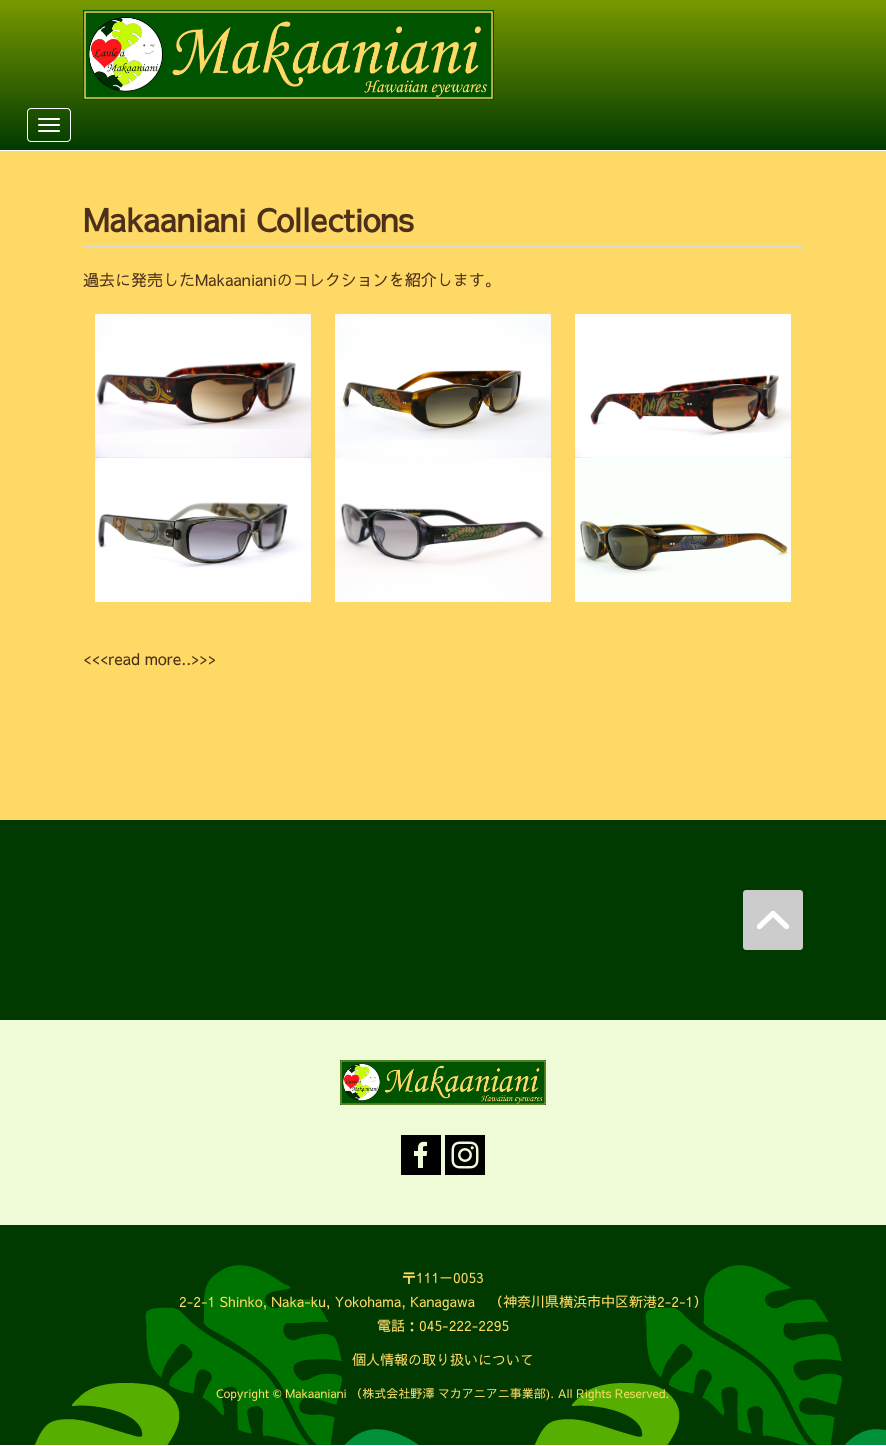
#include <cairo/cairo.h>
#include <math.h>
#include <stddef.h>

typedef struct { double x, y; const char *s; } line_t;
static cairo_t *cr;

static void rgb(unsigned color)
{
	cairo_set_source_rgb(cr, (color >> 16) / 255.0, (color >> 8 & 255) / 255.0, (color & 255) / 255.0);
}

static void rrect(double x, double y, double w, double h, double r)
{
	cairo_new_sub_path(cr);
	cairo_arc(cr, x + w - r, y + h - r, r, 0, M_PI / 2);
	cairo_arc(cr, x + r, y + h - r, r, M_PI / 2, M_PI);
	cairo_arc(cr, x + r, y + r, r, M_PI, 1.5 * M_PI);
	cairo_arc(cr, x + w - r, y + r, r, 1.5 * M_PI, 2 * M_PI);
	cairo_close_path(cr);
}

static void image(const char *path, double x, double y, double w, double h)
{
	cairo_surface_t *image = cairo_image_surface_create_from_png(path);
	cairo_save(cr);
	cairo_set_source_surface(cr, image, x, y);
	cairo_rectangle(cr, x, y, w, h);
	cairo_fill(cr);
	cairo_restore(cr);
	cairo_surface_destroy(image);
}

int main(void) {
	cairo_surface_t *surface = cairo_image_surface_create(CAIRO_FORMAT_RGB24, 886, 1446);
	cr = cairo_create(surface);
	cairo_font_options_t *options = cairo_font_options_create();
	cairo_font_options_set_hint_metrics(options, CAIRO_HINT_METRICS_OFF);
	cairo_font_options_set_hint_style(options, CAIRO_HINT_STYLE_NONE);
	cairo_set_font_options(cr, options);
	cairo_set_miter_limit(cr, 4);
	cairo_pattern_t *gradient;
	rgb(0xffffff);
	cairo_paint(cr);
	gradient = cairo_pattern_create_linear(443, 0, 443, 150);
	cairo_pattern_add_color_stop_rgba(gradient, 0, 0.471, 0.6, 0, 1);
	cairo_pattern_add_color_stop_rgba(gradient, 1, 0, 0.227, 0, 1);
	cairo_set_source(cr, gradient);
	cairo_pattern_destroy(gradient);
	cairo_rectangle(cr, 0, 0, 886, 150);
	cairo_fill(cr);
	image("img/1.png", 83, 10, 411, 90);
	rrect(27.5, 108.5, 43, 33, 3.5);
	rgb(0xffffff);
	cairo_set_line_width(cr, 1);
	cairo_stroke(cr);
	rrect(38, 118, 22, 2, 1);
	cairo_fill(cr);
	rrect(38, 124, 22, 2, 1);
	cairo_fill(cr);
	rrect(38, 130, 22, 2, 1);
	cairo_fill(cr);
	rgb(0xffd966);
	cairo_rectangle(cr, 0, 151, 886, 669);
	cairo_fill(cr);
	rgb(0xdcdcdc);
	cairo_rectangle(cr, 83, 246, 720, 1);
	cairo_fill(cr);
	image("img/2.png", 95, 314, 216, 144);
	image("img/3.png", 335, 314, 216, 144);
	image("img/4.png", 575, 314, 216, 144);
	image("img/5.png", 95, 458, 216, 144);
	image("img/6.png", 335, 458, 216, 144);
	image("img/7.png", 575, 458, 216, 144);
	rgb(0x003a00);
	cairo_rectangle(cr, 0, 820, 886, 200);
	cairo_fill(cr);
	rgb(0xcccccc);
	rrect(743, 890, 60, 60, 3);
	cairo_fill(cr);
	cairo_new_path(cr);
	cairo_move_to(cr, 759.5, 926.5);
	cairo_line_to(cr, 773, 913.5);
	cairo_line_to(cr, 786.5, 926.5);
	rgb(0xffffff);
	cairo_set_line_width(cr, 5.3);
	cairo_set_line_cap(cr, CAIRO_LINE_CAP_ROUND);
	cairo_set_line_join(cr, CAIRO_LINE_JOIN_ROUND);
	cairo_stroke(cr);
	rgb(0xeffad6);
	cairo_rectangle(cr, 0, 1020, 886, 205);
	cairo_fill(cr);
	image("img/8.png", 340, 1060, 206, 45);
	image("img/9.png", 401, 1135, 40, 40);
	image("img/10.png", 445, 1135, 40, 40);
	rgb(0x003a00);
	cairo_rectangle(cr, 0, 1225, 886, 220);
	cairo_fill(cr);
	image("img/11.png", 34, 1265, 852, 180);
	cairo_select_font_face(cr, "Sawarabi Gothic", CAIRO_FONT_SLANT_NORMAL, CAIRO_FONT_WEIGHT_BOLD);
	cairo_set_font_size(cr, 32);
	rgb(0x4d301a);
	cairo_move_to(cr, 83, 232);
	cairo_show_text(cr, "Makaaniani Collections");
	cairo_select_font_face(cr, "Sawarabi Gothic", CAIRO_FONT_SLANT_NORMAL, CAIRO_FONT_WEIGHT_NORMAL);
	cairo_set_font_size(cr, 16);
	cairo_move_to(cr, 83, 286);
	cairo_show_text(cr, "過去に発売したMakaanianiのコレクションを紹介します。");
	cairo_move_to(cr, 83, 665);
	cairo_show_text(cr, "<<<read more..>>>");
	cairo_set_font_size(cr, 14);
	rgb(0xffd966);
	{
		static const line_t items[] = {
			{402, 1283, "〒111－0053"},
			{179, 1307, "2-2-1 Shinko, Naka-ku, Yokohama, Kanagawa　（神奈川県横浜市中区新港2-2-1）"},
			{377, 1331, "電話：045-222-2295"},
			{352, 1365, "個人情報の取り扱いについて"},
		};
		for (size_t i = 0; i < sizeof items / sizeof *items; i++) {
			cairo_move_to(cr, items[i].x, items[i].y);
			cairo_show_text(cr, items[i].s);
		}
	}
	cairo_set_font_size(cr, 12);
	cairo_move_to(cr, 216, 1398);
	cairo_show_text(cr, "Copyright © Makaaniani （株式会社野澤 マカアニアニ事業部). All Rights Reserved.");
	cairo_surface_write_to_png(surface, "page.png");
	cairo_font_options_destroy(options);
	cairo_destroy(cr);
	cairo_surface_destroy(surface);
	return 0;
}
